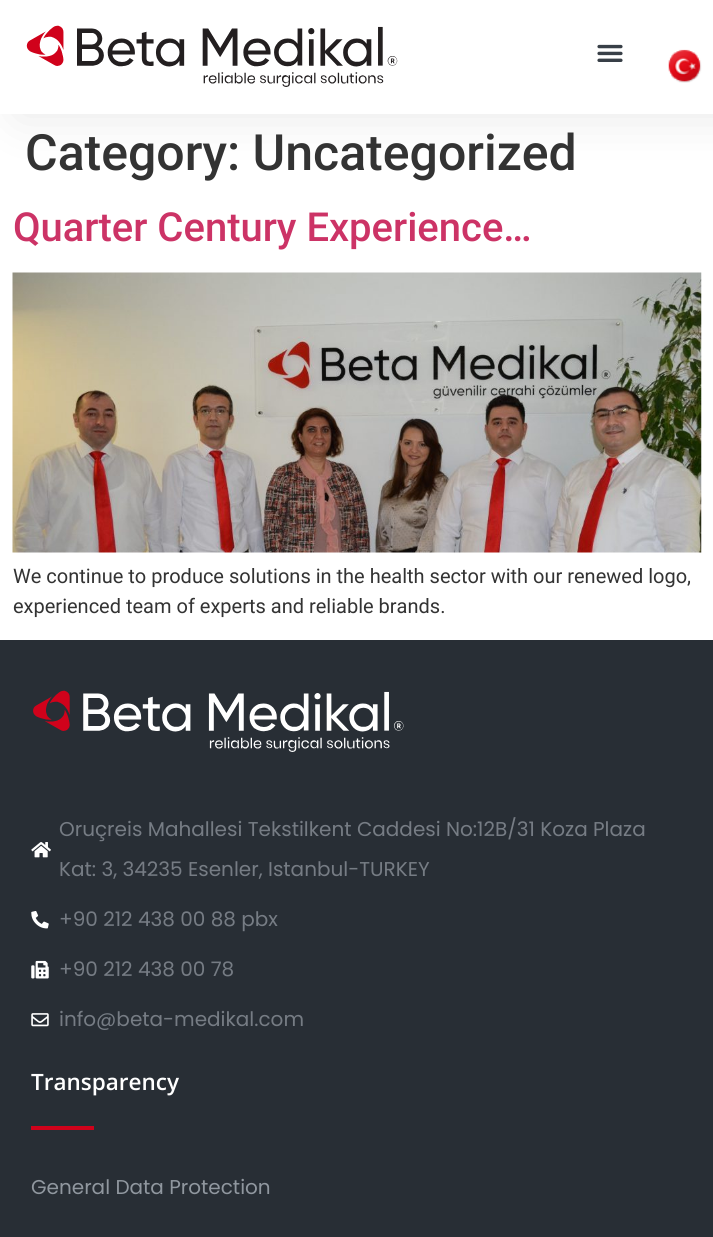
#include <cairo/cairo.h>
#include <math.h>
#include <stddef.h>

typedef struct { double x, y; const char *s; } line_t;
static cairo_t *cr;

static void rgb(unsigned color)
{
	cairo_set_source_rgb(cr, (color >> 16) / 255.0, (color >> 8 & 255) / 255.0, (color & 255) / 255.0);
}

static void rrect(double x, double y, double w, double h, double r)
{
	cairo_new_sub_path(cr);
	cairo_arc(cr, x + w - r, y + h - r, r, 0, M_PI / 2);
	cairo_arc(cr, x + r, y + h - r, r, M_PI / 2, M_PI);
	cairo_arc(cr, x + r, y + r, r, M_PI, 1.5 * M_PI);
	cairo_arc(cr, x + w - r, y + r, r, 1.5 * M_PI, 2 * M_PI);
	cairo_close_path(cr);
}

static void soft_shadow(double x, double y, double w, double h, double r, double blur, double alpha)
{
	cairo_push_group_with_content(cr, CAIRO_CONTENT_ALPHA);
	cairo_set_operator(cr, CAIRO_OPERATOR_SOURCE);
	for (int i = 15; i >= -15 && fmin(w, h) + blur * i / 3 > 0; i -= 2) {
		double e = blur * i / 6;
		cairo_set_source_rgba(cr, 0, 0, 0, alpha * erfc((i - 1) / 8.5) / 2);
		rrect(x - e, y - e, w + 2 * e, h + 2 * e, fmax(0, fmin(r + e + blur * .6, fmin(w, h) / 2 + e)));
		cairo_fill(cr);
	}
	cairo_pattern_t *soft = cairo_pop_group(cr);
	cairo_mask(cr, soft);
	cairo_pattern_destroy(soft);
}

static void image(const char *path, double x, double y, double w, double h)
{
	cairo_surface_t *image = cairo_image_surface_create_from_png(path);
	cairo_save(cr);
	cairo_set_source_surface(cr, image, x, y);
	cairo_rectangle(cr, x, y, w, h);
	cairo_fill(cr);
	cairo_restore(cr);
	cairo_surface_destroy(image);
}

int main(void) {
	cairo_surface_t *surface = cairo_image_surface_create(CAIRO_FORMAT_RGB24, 713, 1237);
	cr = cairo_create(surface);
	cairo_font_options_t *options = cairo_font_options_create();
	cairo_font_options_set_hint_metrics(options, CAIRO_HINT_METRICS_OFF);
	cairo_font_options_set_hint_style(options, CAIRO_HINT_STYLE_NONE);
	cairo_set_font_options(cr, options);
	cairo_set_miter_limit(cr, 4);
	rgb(0xffffff);
	cairo_paint(cr);
	rgb(0x000000);
	soft_shadow(19, 0, 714, 114, 0, 25, 0.1);
	rgb(0xffffff);
	cairo_rectangle(cr, 0, 0, 713, 114);
	cairo_fill(cr);
	image("img/1.png", 26, 25, 372, 62);
	image("img/2.png", 597, 44, 26, 18);
	image("img/3.png", 668, 49, 34, 34);
	image("img/4.png", 12, 272, 690, 281);
	rgb(0x282e35);
	cairo_rectangle(cr, 0, 640, 713, 597);
	cairo_fill(cr);
	image("img/5.png", 33, 690, 371, 62);
	image("img/6.png", 31, 842, 20, 16);
	image("img/7.png", 31, 911, 18, 18);
	image("img/8.png", 31, 960, 18, 19);
	image("img/9.png", 31, 1013, 18, 14);
	rgb(0xd0021b);
	cairo_rectangle(cr, 31, 1126, 63, 4);
	cairo_fill(cr);
	cairo_select_font_face(cr, "Roboto Medium", CAIRO_FONT_SLANT_NORMAL, CAIRO_FONT_WEIGHT_NORMAL);
	cairo_set_font_size(cr, 50);
	rgb(0x333333);
	cairo_move_to(cr, 25, 170);
	cairo_show_text(cr, "Category: Uncategorized");
	cairo_set_font_size(cr, 40);
	rgb(0xcc3366);
	cairo_move_to(cr, 13, 241);
	cairo_show_text(cr, "Quarter Century Experience…");
	cairo_select_font_face(cr, "Roboto", CAIRO_FONT_SLANT_NORMAL, CAIRO_FONT_WEIGHT_NORMAL);
	cairo_set_font_size(cr, 20);
	rgb(0x333333);
	cairo_move_to(cr, 13, 583);
	cairo_show_text(cr, "We continue to produce solutions in the health sector with our renewed logo,");
	cairo_move_to(cr, 13, 613);
	cairo_show_text(cr, "experienced team of experts and reliable brands.");
	cairo_select_font_face(cr, "Poppins", CAIRO_FONT_SLANT_NORMAL, CAIRO_FONT_WEIGHT_NORMAL);
	rgb(0x767c84);
	{
		static const line_t items[] = {
			{59, 836, "Oruçreis Mahallesi Tekstilkent Caddesi No:12B/31 Koza Plaza"},
			{59, 876, "Kat: 3, 34235 Esenler, Istanbul-TURKEY"},
			{59, 926, "+90 212 438 00 88 pbx"},
			{59, 976, "+90 212 438 00 78"},
			{59, 1026, "info@beta-medikal.com"},
		};
		for (size_t i = 0; i < sizeof items / sizeof *items; i++) {
			cairo_move_to(cr, items[i].x, items[i].y);
			cairo_show_text(cr, items[i].s);
		}
	}
	cairo_select_font_face(cr, "Open Sans SemiBold", CAIRO_FONT_SLANT_NORMAL, CAIRO_FONT_WEIGHT_NORMAL);
	cairo_set_font_size(cr, 22.5);
	rgb(0xffffff);
	cairo_move_to(cr, 31, 1090);
	cairo_show_text(cr, "Transparency");
	cairo_select_font_face(cr, "Poppins", CAIRO_FONT_SLANT_NORMAL, CAIRO_FONT_WEIGHT_NORMAL);
	cairo_set_font_size(cr, 20);
	rgb(0x90979f);
	cairo_move_to(cr, 31, 1194);
	cairo_show_text(cr, "General Data Protection");
	cairo_surface_write_to_png(surface, "page.png");
	cairo_font_options_destroy(options);
	cairo_destroy(cr);
	cairo_surface_destroy(surface);
	return 0;
}
